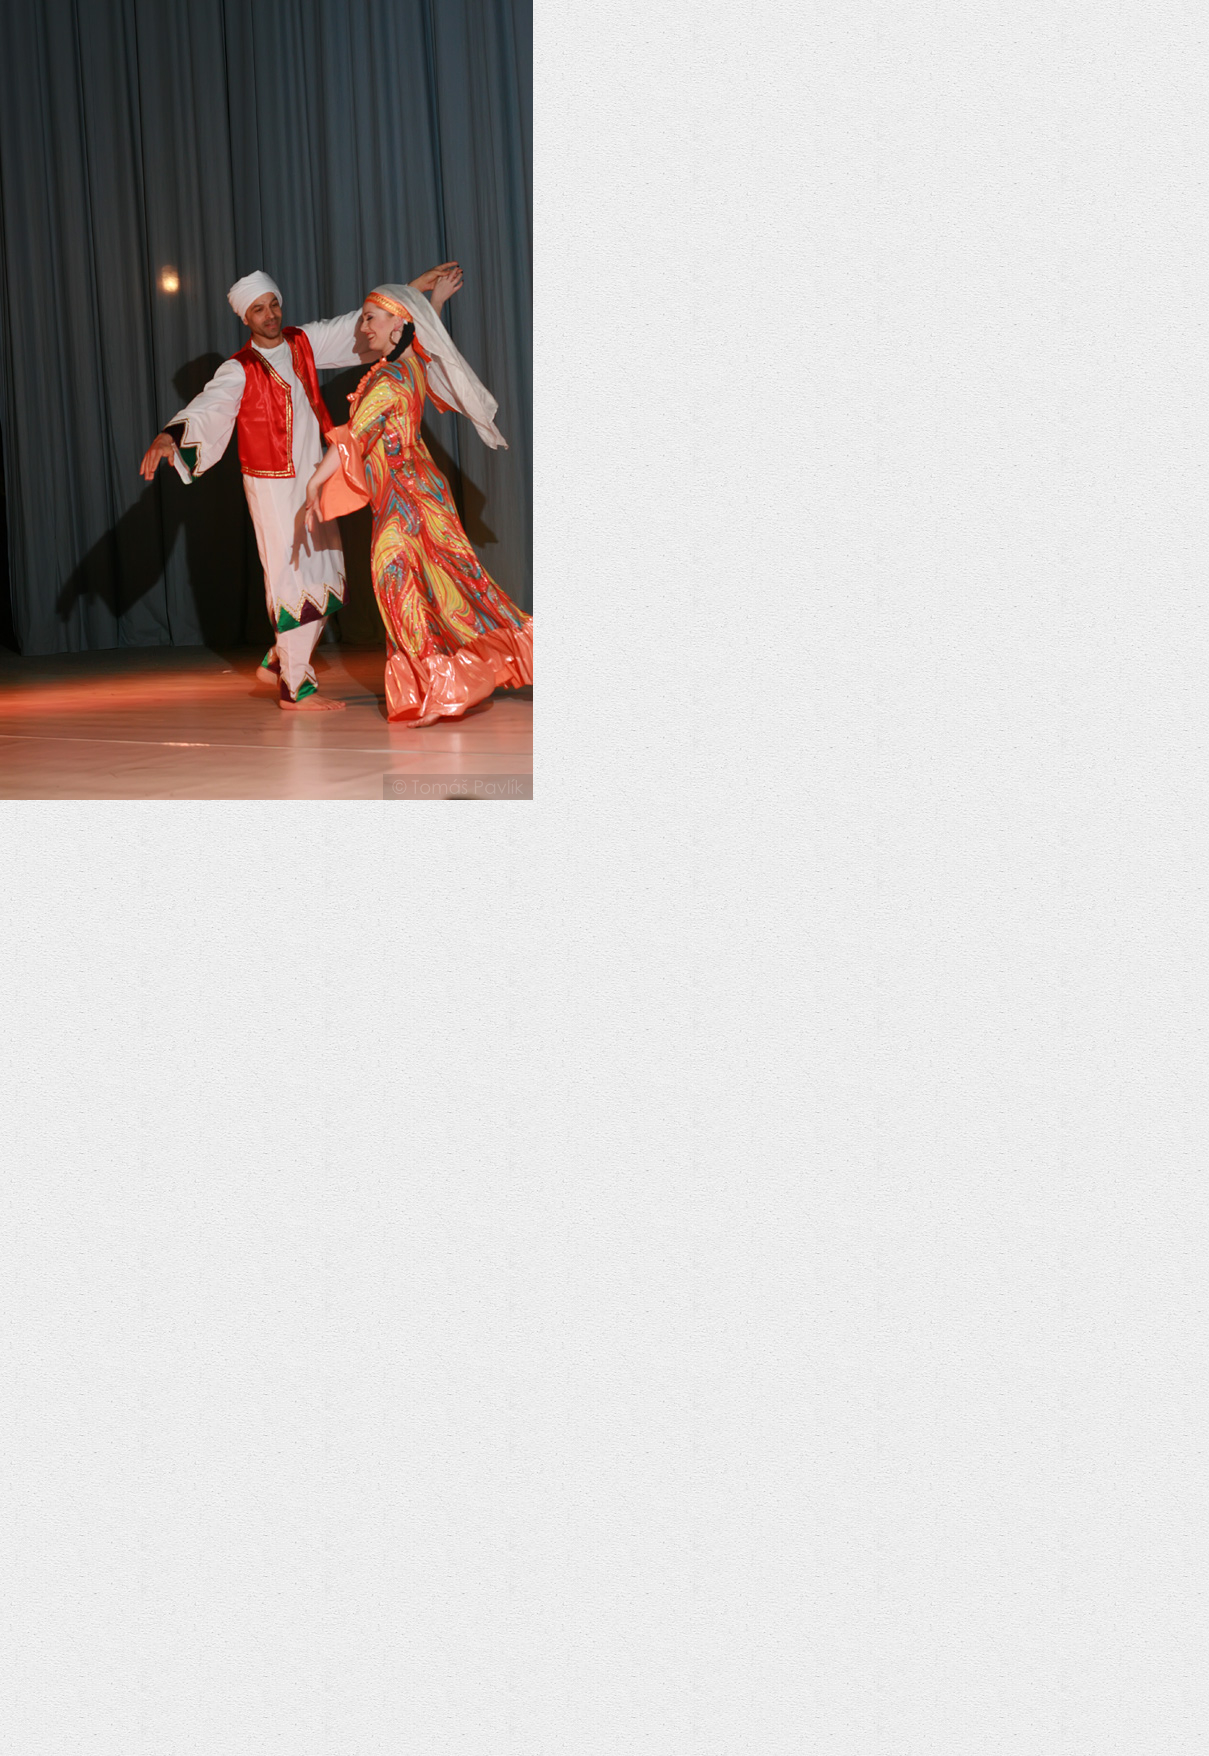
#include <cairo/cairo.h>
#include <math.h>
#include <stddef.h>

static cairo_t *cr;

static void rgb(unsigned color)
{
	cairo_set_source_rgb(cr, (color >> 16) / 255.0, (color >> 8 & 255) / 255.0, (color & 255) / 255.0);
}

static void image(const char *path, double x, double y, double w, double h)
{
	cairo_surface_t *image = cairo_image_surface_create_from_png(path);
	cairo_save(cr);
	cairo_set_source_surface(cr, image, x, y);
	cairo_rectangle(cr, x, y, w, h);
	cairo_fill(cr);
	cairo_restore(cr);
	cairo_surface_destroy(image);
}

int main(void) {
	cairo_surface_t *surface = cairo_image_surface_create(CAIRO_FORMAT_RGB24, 1209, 1756);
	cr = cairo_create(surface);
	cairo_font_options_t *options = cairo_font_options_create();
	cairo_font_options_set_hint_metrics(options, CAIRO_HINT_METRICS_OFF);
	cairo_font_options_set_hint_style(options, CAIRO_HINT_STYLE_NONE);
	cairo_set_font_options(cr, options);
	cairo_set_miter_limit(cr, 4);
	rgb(0xffffff);
	cairo_paint(cr);
	image("img/1.png", 0, 0, 1209, 1756);
	image("img/2.png", 0, 0, 533, 800);
	cairo_surface_write_to_png(surface, "page.png");
	cairo_font_options_destroy(options);
	cairo_destroy(cr);
	cairo_surface_destroy(surface);
	return 0;
}
